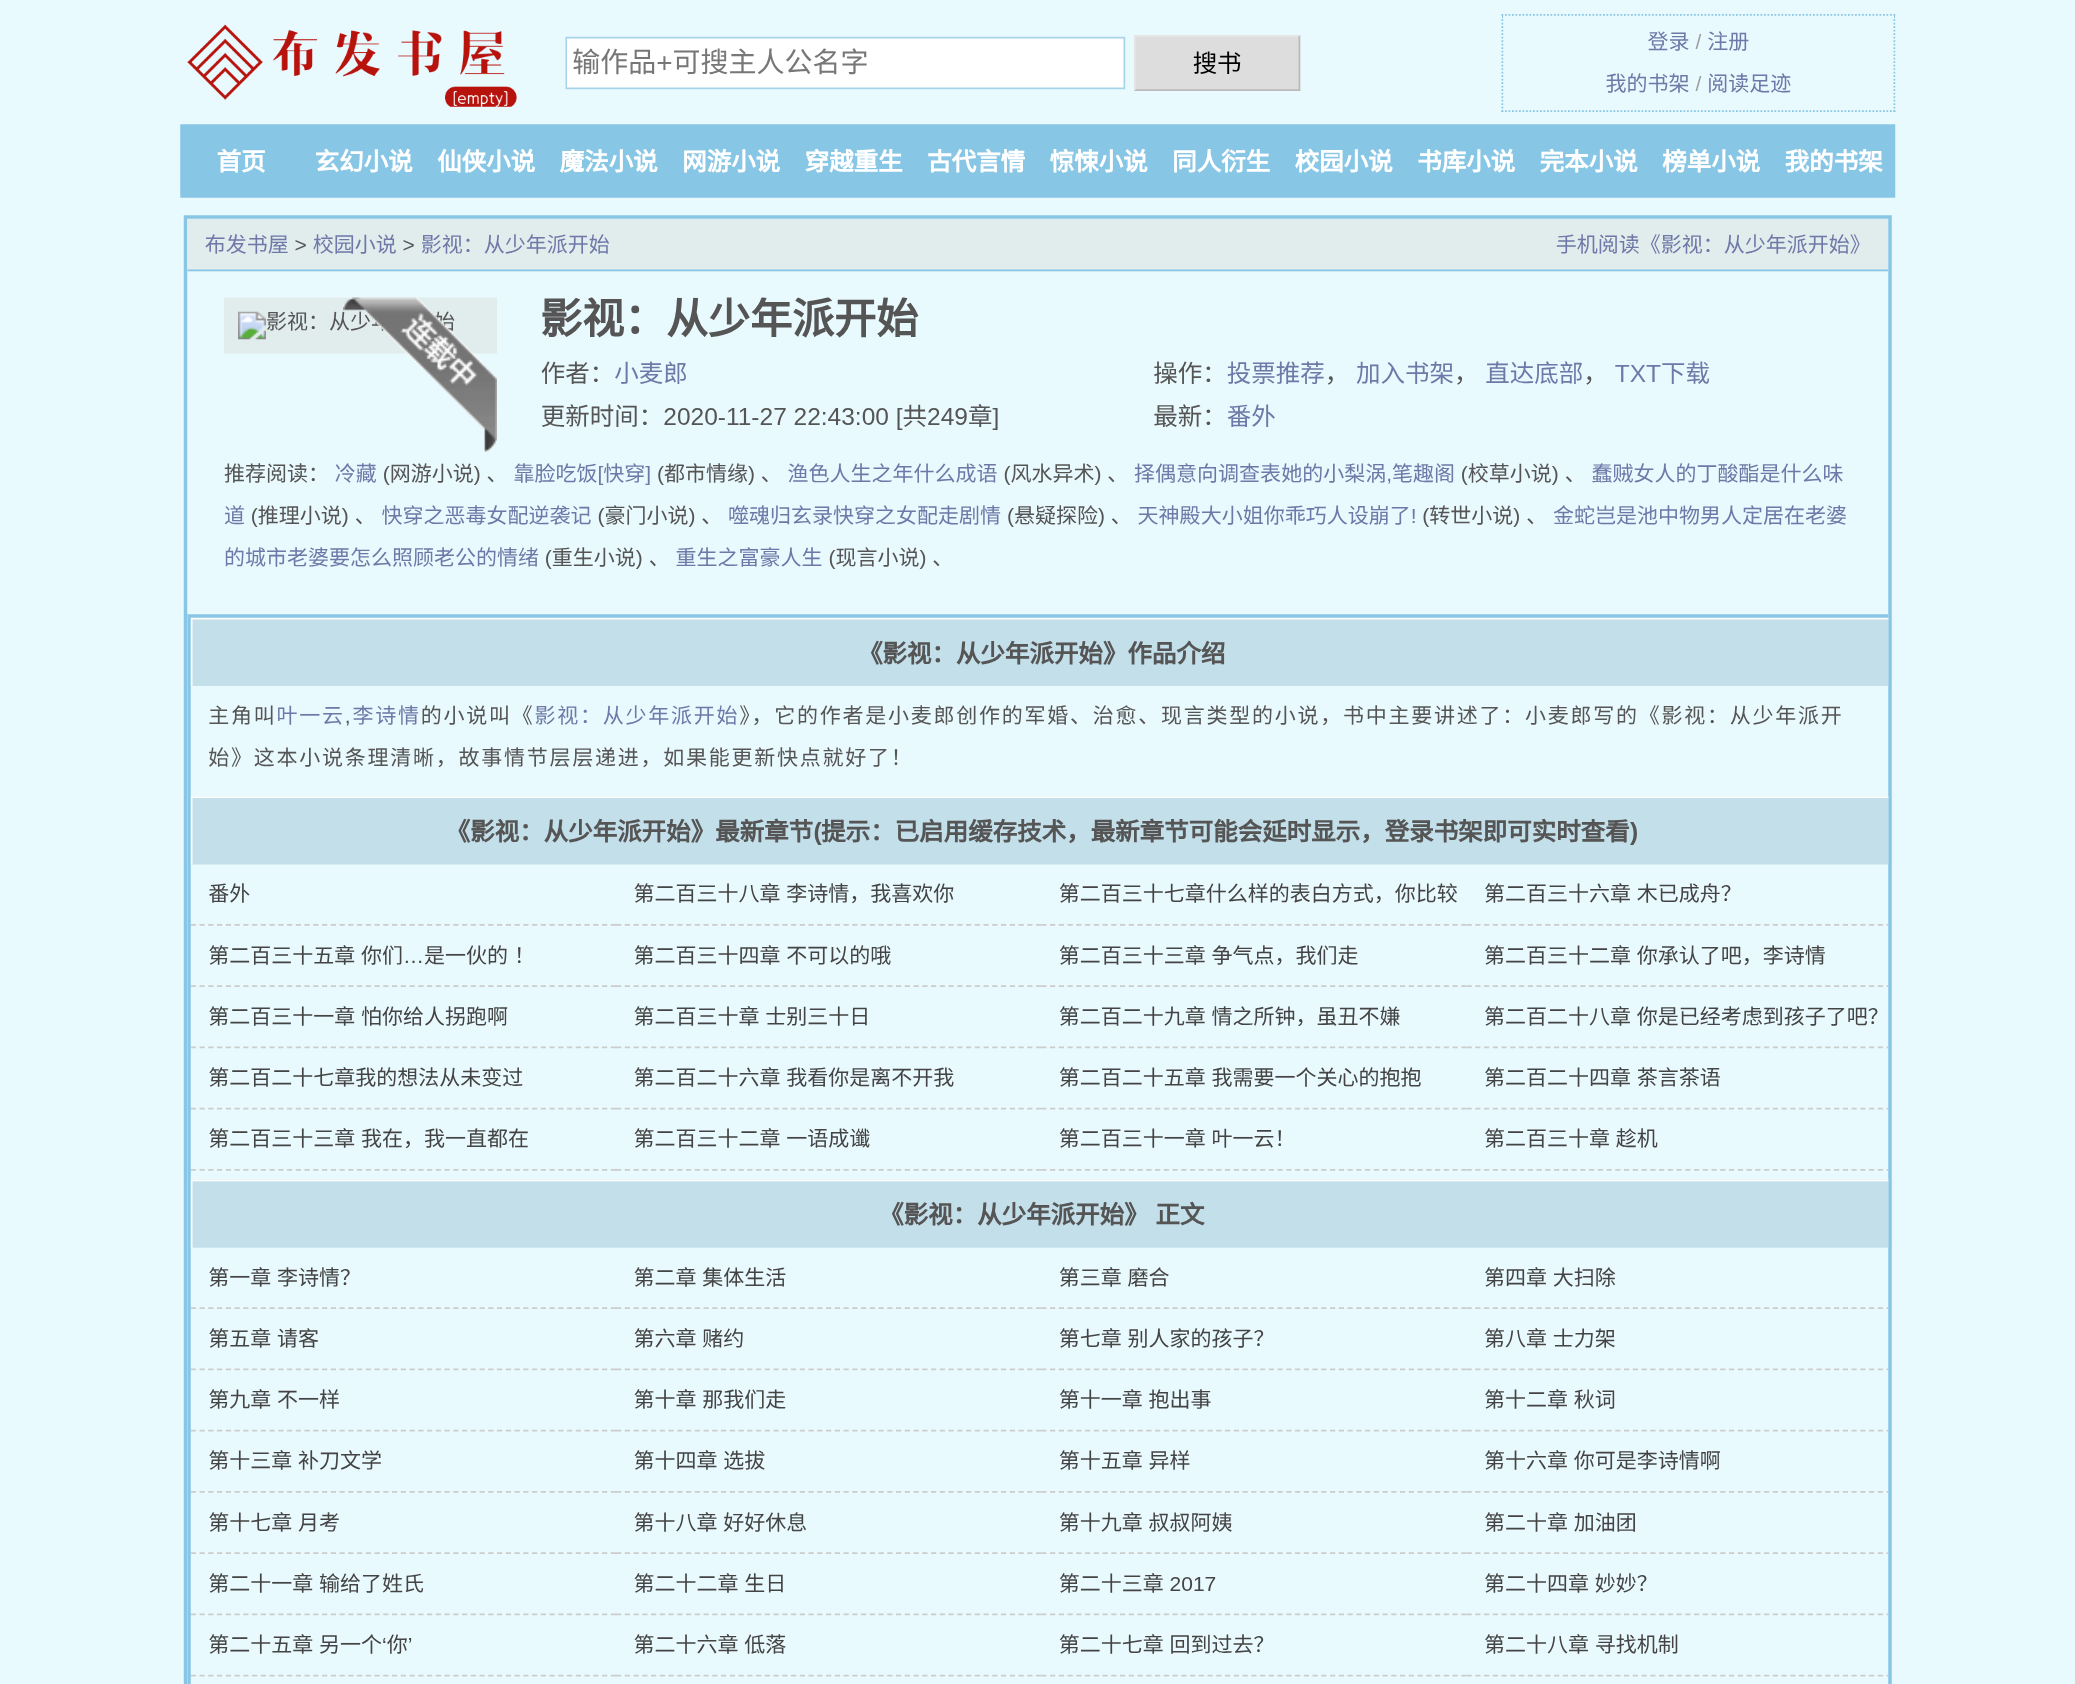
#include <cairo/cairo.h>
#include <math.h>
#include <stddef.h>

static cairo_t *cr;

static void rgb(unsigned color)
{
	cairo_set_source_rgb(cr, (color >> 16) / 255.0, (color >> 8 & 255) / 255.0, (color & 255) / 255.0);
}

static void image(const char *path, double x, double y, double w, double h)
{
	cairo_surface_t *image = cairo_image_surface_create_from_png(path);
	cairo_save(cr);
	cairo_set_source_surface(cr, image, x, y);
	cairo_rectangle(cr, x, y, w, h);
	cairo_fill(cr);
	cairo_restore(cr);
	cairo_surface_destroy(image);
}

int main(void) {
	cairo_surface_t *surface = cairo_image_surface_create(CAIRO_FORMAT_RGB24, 2075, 1684);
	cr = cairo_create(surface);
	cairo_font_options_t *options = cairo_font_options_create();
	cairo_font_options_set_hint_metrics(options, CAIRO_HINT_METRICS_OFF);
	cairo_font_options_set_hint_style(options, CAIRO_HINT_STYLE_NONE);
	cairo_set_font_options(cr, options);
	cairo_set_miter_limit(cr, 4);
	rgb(0xffffff);
	cairo_paint(cr);
	image("img/1.png", 0, 0, 2075, 1684);
	cairo_surface_write_to_png(surface, "page.png");
	cairo_font_options_destroy(options);
	cairo_destroy(cr);
	cairo_surface_destroy(surface);
	return 0;
}
